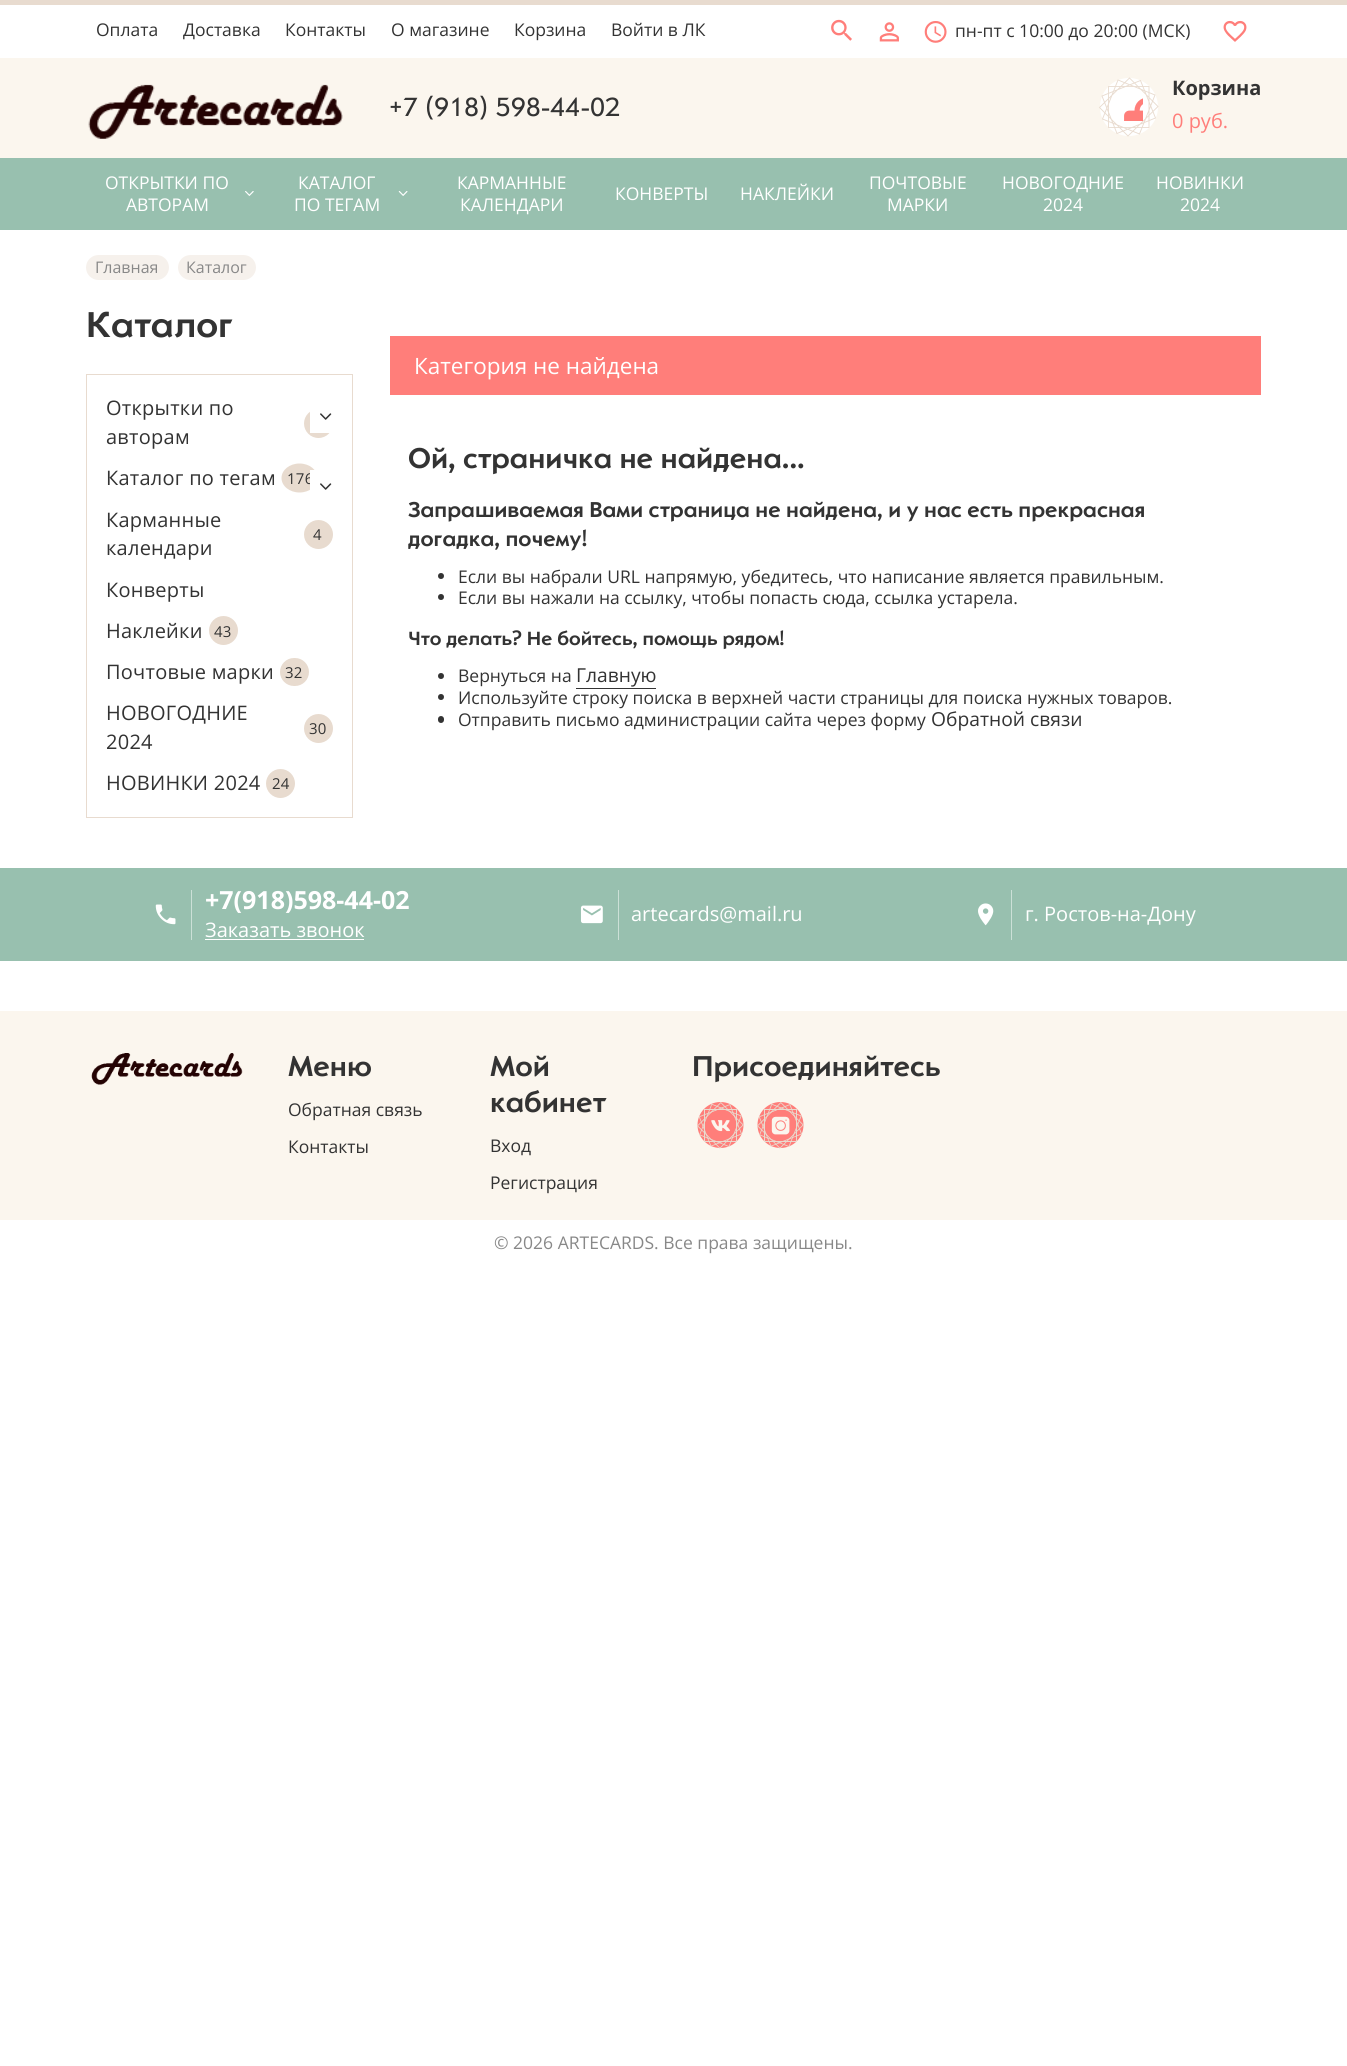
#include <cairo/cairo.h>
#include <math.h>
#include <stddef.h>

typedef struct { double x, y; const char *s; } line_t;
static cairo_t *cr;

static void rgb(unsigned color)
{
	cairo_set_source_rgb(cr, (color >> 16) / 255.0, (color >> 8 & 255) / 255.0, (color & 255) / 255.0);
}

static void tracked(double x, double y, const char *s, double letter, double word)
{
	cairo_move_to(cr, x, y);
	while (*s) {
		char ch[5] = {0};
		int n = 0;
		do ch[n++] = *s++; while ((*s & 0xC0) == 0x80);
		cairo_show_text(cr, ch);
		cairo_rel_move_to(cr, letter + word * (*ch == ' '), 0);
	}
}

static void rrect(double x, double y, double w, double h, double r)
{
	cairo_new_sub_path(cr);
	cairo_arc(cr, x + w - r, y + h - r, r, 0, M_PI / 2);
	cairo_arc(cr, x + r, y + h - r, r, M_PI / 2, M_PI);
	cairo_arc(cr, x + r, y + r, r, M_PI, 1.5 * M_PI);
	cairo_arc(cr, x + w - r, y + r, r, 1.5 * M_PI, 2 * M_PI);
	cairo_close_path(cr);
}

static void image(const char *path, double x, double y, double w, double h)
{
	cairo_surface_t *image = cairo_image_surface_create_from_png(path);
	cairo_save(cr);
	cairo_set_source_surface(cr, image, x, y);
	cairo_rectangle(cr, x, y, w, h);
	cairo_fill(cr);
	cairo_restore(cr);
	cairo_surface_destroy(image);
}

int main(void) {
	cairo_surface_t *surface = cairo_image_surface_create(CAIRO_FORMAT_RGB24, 1347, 2066);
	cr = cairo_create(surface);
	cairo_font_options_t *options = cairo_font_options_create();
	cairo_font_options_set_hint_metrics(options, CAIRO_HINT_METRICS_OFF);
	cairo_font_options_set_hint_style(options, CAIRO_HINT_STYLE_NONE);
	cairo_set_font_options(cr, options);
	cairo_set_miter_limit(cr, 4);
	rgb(0xffffff);
	cairo_paint(cr);
	rgb(0xe8dbcf);
	cairo_rectangle(cr, 0, 0, 1347, 5);
	cairo_fill(cr);
	image("img/1.png", 831, 19, 21, 22);
	image("img/2.png", 879, 22, 20, 20);
	image("img/3.png", 924, 21, 23, 22);
	image("img/4.png", 1223, 20, 24, 22);
	rgb(0xfbf6ee);
	cairo_rectangle(cr, 0, 58, 1347, 100);
	cairo_fill(cr);
	image("img/5.png", 88, 84, 255, 55);
	rgb(0xffffff);
	cairo_arc(cr, 1129, 107, 29, 0, 2 * M_PI);
	cairo_fill(cr);
	cairo_new_path(cr);
	cairo_move_to(cr, 1108.5, 86.5);
	cairo_line_to(cr, 1149, 86.5);
	cairo_line_to(cr, 1149, 127.5);
	cairo_line_to(cr, 1108.5, 127.5);
	cairo_close_path(cr);
	cairo_move_to(cr, 1129.5, 78);
	cairo_line_to(cr, 1158, 106.5);
	cairo_line_to(cr, 1128, 136);
	cairo_line_to(cr, 1099.5, 107.5);
	cairo_close_path(cr);
	cairo_move_to(cr, 1140.5, 80.5);
	cairo_line_to(cr, 1155.5, 118);
	cairo_line_to(cr, 1117, 133.5);
	cairo_line_to(cr, 1102, 96);
	cairo_close_path(cr);
	cairo_move_to(cr, 1118, 80);
	cairo_line_to(cr, 1155, 95);
	cairo_line_to(cr, 1139.5, 134);
	cairo_line_to(cr, 1102.5, 119);
	cairo_close_path(cr);
	rgb(0xe8dbcf);
	cairo_set_line_width(cr, 0.9);
	cairo_stroke(cr);
	image("img/6.png", 1124, 98, 19, 23);
	rgb(0x98c0af);
	cairo_rectangle(cr, 0, 158, 1347, 72);
	cairo_fill(cr);
	image("img/7.png", 245, 191, 9, 5);
	image("img/8.png", 398, 191, 10, 5);
	rgb(0xf6f1ec);
	rrect(86, 255, 83, 25, 12.5);
	cairo_fill(cr);
	rrect(178, 255, 78, 25, 12.5);
	cairo_fill(cr);
	cairo_rectangle(cr, 86.5, 374.5, 266, 443);
	rgb(0xe8dbcf);
	cairo_set_line_width(cr, 1);
	cairo_stroke(cr);
	cairo_arc(cr, 318.5, 423.5, 14.5, 0, 2 * M_PI);
	cairo_fill(cr);
	rgb(0xffffff);
	cairo_rectangle(cr, 310, 409, 23, 24);
	cairo_fill(cr);
	image("img/9.png", 320, 413, 12, 7);
	rgb(0xe8dbcf);
	cairo_new_path(cr);
	cairo_move_to(cr, 299.5, 463.5);
	cairo_curve_to(cr, 309.5, 463.5, 317.5, 470, 317.5, 478);
	cairo_curve_to(cr, 317.5, 486, 309.5, 492.5, 299.5, 492.5);
	cairo_curve_to(cr, 289.5, 492.5, 281.5, 486, 281.5, 478);
	cairo_curve_to(cr, 281.5, 470, 289.5, 463.5, 299.5, 463.5);
	cairo_close_path(cr);
	cairo_fill(cr);
	image("img/9.png", 320, 483, 12, 7);
	cairo_arc(cr, 318.5, 534.5, 14.5, 0, 2 * M_PI);
	cairo_fill(cr);
	cairo_arc(cr, 223.5, 630.5, 14.5, 0, 2 * M_PI);
	cairo_fill(cr);
	rrect(280, 658, 29, 28, 14);
	cairo_fill(cr);
	cairo_arc(cr, 318.5, 728.5, 14.5, 0, 2 * M_PI);
	cairo_fill(cr);
	cairo_arc(cr, 280.5, 783.5, 14.5, 0, 2 * M_PI);
	cairo_fill(cr);
	rgb(0xff7e7a);
	cairo_rectangle(cr, 390, 336, 871, 59);
	cairo_fill(cr);
	rgb(0x333333);
	cairo_arc(cr, 441, 576, 3, 0, 2 * M_PI);
	cairo_fill(cr);
	cairo_arc(cr, 441, 597, 3, 0, 2 * M_PI);
	cairo_fill(cr);
	cairo_arc(cr, 441, 676, 3, 0, 2 * M_PI);
	cairo_fill(cr);
	cairo_rectangle(cr, 576, 688, 80, 1);
	cairo_fill(cr);
	cairo_arc(cr, 441, 697, 3, 0, 2 * M_PI);
	cairo_fill(cr);
	rrect(438, 716, 6, 7, 3);
	cairo_fill(cr);
	rgb(0x98c0af);
	cairo_rectangle(cr, 0, 868, 1347, 93);
	cairo_fill(cr);
	rgb(0xcce0d7);
	cairo_rectangle(cr, 191, 890, 1, 50);
	cairo_fill(cr);
	image("img/10.png", 155, 904, 21, 21);
	rgb(0xffffff);
	cairo_rectangle(cr, 205, 939, 159, 1);
	cairo_fill(cr);
	rgb(0xcce0d7);
	cairo_rectangle(cr, 618, 890, 1, 50);
	cairo_fill(cr);
	image("img/11.png", 580, 905, 23, 19);
	cairo_rectangle(cr, 1011, 890, 1, 50);
	cairo_fill(cr);
	image("img/12.png", 978, 903, 16, 23);
	rgb(0xfbf6ee);
	cairo_rectangle(cr, 0, 1011, 1347, 209);
	cairo_fill(cr);
	image("img/13.png", 91, 1053, 152, 32);
	image("img/14.png", 697, 1102, 47, 47);
	image("img/15.png", 711, 1120, 19, 12);
	image("img/14.png", 757, 1102, 47, 47);
	image("img/16.png", 771, 1116, 19, 19);
	cairo_select_font_face(cr, "Open Sans", CAIRO_FONT_SLANT_NORMAL, CAIRO_FONT_WEIGHT_NORMAL);
	cairo_set_font_size(cr, 17.5);
	rgb(0x333333);
	{
		static const line_t items[] = {
			{96, 36, "Оплата"},
			{183, 36, "Доставка"},
			{285, 36, "Контакты"},
			{391, 36, "О магазине"},
			{514, 36, "Корзина"},
			{611, 36, "Войти в ЛК"},
			{955, 37, "пн-пт с 10:00 до 20:00 (МСК)"},
		};
		for (size_t i = 0; i < sizeof items / sizeof *items; i++) {
			cairo_move_to(cr, items[i].x, items[i].y);
			cairo_show_text(cr, items[i].s);
		}
	}
	cairo_select_font_face(cr, "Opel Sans", CAIRO_FONT_SLANT_NORMAL, CAIRO_FONT_WEIGHT_NORMAL);
	cairo_set_font_size(cr, 27.5);
	cairo_move_to(cr, 389, 116);
	cairo_show_text(cr, "+7 (918) 598-44-02");
	cairo_select_font_face(cr, "Open Sans", CAIRO_FONT_SLANT_NORMAL, CAIRO_FONT_WEIGHT_BOLD);
	cairo_set_font_size(cr, 20);
	cairo_move_to(cr, 1172, 95);
	cairo_show_text(cr, "Корзина");
	cairo_select_font_face(cr, "Open Sans", CAIRO_FONT_SLANT_NORMAL, CAIRO_FONT_WEIGHT_NORMAL);
	rgb(0xff7e7a);
	cairo_move_to(cr, 1172, 128);
	cairo_show_text(cr, "0 руб.");
	cairo_set_font_size(cr, 17.5);
	rgb(0xffffff);
	{
		static const line_t items[] = {
			{105, 189, "ОТКРЫТКИ ПО"},
			{126, 211, "АВТОРАМ"},
			{298, 189, "КАТАЛОГ"},
			{294, 211, "ПО ТЕГАМ"},
			{457, 189, "КАРМАННЫЕ"},
			{460, 211, "КАЛЕНДАРИ"},
			{615, 200, "КОНВЕРТЫ"},
			{740, 200, "НАКЛЕЙКИ"},
			{869, 189, "ПОЧТОВЫЕ"},
			{887, 211, "МАРКИ"},
			{1002, 189, "НОВОГОДНИЕ"},
			{1043, 211, "2024"},
			{1156, 189, "НОВИНКИ"},
			{1180, 211, "2024"},
		};
		for (size_t i = 0; i < sizeof items / sizeof *items; i++) {
			cairo_move_to(cr, items[i].x, items[i].y);
			cairo_show_text(cr, items[i].s);
		}
	}
	cairo_set_font_size(cr, 16);
	rgb(0x888888);
	cairo_move_to(cr, 95, 273);
	cairo_show_text(cr, "Главная");
	cairo_move_to(cr, 186, 273);
	cairo_show_text(cr, "Каталог");
	cairo_select_font_face(cr, "Opel Sans", CAIRO_FONT_SLANT_NORMAL, CAIRO_FONT_WEIGHT_BOLD);
	cairo_set_font_size(cr, 37.5);
	rgb(0x333333);
	cairo_move_to(cr, 86, 337);
	cairo_show_text(cr, "Каталог");
	cairo_select_font_face(cr, "Open Sans", CAIRO_FONT_SLANT_NORMAL, CAIRO_FONT_WEIGHT_NORMAL);
	cairo_set_font_size(cr, 20);
	{
		static const line_t items[] = {
			{106, 415, "Открытки по"},
			{106, 444, "авторам"},
			{106, 485, "Каталог по тегам"},
		};
		for (size_t i = 0; i < sizeof items / sizeof *items; i++) {
			tracked(items[i].x, items[i].y, items[i].s, 0.25, 0);
		}
	}
	cairo_set_font_size(cr, 15);
	tracked(287, 484, "176", 0.25, 0);
	rgb(0xffffff);
	cairo_rectangle(cr, 310, 470, 8, 20);
	cairo_fill(cr);
	cairo_set_font_size(cr, 20);
	rgb(0x333333);
	tracked(106, 527, "Карманные", 0.25, 0);
	cairo_set_font_size(cr, 15);
	tracked(313, 540, "4", 0.25, 0);
	cairo_set_font_size(cr, 20);
	{
		static const line_t items[] = {
			{106, 555, "календари"},
			{106, 597, "Конверты"},
			{106, 638, "Наклейки"},
		};
		for (size_t i = 0; i < sizeof items / sizeof *items; i++) {
			tracked(items[i].x, items[i].y, items[i].s, 0.25, 0);
		}
	}
	cairo_set_font_size(cr, 15);
	tracked(214, 637, "43", 0.25, 0);
	cairo_set_font_size(cr, 20);
	tracked(106, 679, "Почтовые марки", 0.25, 0);
	cairo_set_font_size(cr, 15);
	tracked(285, 678, "32", 0.25, 0);
	cairo_set_font_size(cr, 20);
	tracked(106, 720, "НОВОГОДНИЕ", 0.25, 0);
	cairo_set_font_size(cr, 15);
	tracked(309, 734, "30", 0.25, 0);
	cairo_set_font_size(cr, 20);
	tracked(106, 749, "2024", 0.25, 0);
	tracked(106, 790, "НОВИНКИ 2024", 0.25, 0);
	cairo_set_font_size(cr, 15);
	tracked(272, 789, "24", 0.25, 0);
	cairo_set_font_size(cr, 22.5);
	rgb(0xffffff);
	cairo_move_to(cr, 414, 374);
	cairo_show_text(cr, "Категория не найдена");
	cairo_select_font_face(cr, "Opel Sans", CAIRO_FONT_SLANT_NORMAL, CAIRO_FONT_WEIGHT_BOLD);
	cairo_set_font_size(cr, 30);
	rgb(0x333333);
	cairo_move_to(cr, 408, 468);
	cairo_show_text(cr, "Ой, страничка не найдена...");
	cairo_set_font_size(cr, 22.5);
	cairo_move_to(cr, 408, 517);
	cairo_show_text(cr, "Запрашиваемая Вами страница не найдена, и у нас есть прекрасная");
	cairo_move_to(cr, 408, 546);
	cairo_show_text(cr, "догадка, почему!");
	cairo_select_font_face(cr, "Open Sans", CAIRO_FONT_SLANT_NORMAL, CAIRO_FONT_WEIGHT_NORMAL);
	cairo_set_font_size(cr, 17.5);
	cairo_move_to(cr, 458, 583);
	cairo_show_text(cr, "Если вы набрали URL напрямую, убедитесь, что написание является правильным.");
	cairo_move_to(cr, 458, 604);
	cairo_show_text(cr, "Если вы нажали на ссылку, чтобы попасть сюда, ссылка устарела.");
	cairo_select_font_face(cr, "Opel Sans", CAIRO_FONT_SLANT_NORMAL, CAIRO_FONT_WEIGHT_BOLD);
	cairo_set_font_size(cr, 20);
	cairo_move_to(cr, 408, 645);
	cairo_show_text(cr, "Что делать? Не бойтесь, помощь рядом!");
	cairo_select_font_face(cr, "Open Sans", CAIRO_FONT_SLANT_NORMAL, CAIRO_FONT_WEIGHT_NORMAL);
	cairo_set_font_size(cr, 17.5);
	cairo_move_to(cr, 458, 682);
	cairo_show_text(cr, "Вернуться на");
	cairo_set_font_size(cr, 19.25);
	cairo_move_to(cr, 576, 682);
	cairo_show_text(cr, "Главную");
	cairo_set_font_size(cr, 17.5);
	cairo_move_to(cr, 458, 704);
	cairo_show_text(cr, "Используйте строку поиска в верхней части страницы для поиска нужных товаров.");
	cairo_move_to(cr, 458, 726);
	cairo_show_text(cr, "Отправить письмо админиcтрации сайта через форму");
	cairo_set_font_size(cr, 19.25);
	cairo_move_to(cr, 931, 726);
	cairo_show_text(cr, "Обратной связи");
	cairo_select_font_face(cr, "Open Sans", CAIRO_FONT_SLANT_NORMAL, CAIRO_FONT_WEIGHT_BOLD);
	cairo_set_font_size(cr, 25);
	rgb(0xffffff);
	cairo_move_to(cr, 205, 909);
	cairo_show_text(cr, "+7(918)598-44-02");
	cairo_select_font_face(cr, "Open Sans", CAIRO_FONT_SLANT_NORMAL, CAIRO_FONT_WEIGHT_NORMAL);
	cairo_set_font_size(cr, 20);
	{
		static const line_t items[] = {
			{205, 937, "Заказать звонок"},
			{631, 921, "artecards@mail.ru"},
			{1025, 921, "г. Ростов-на-Дону"},
		};
		for (size_t i = 0; i < sizeof items / sizeof *items; i++) {
			cairo_move_to(cr, items[i].x, items[i].y);
			cairo_show_text(cr, items[i].s);
		}
	}
	cairo_select_font_face(cr, "Opel Sans", CAIRO_FONT_SLANT_NORMAL, CAIRO_FONT_WEIGHT_BOLD);
	cairo_set_font_size(cr, 30);
	rgb(0x333333);
	cairo_move_to(cr, 288, 1076);
	cairo_show_text(cr, "Меню");
	cairo_select_font_face(cr, "Open Sans", CAIRO_FONT_SLANT_NORMAL, CAIRO_FONT_WEIGHT_NORMAL);
	cairo_set_font_size(cr, 17.5);
	cairo_move_to(cr, 288, 1116);
	cairo_show_text(cr, "Обратная связь");
	cairo_move_to(cr, 288, 1153);
	cairo_show_text(cr, "Контакты");
	cairo_select_font_face(cr, "Opel Sans", CAIRO_FONT_SLANT_NORMAL, CAIRO_FONT_WEIGHT_BOLD);
	cairo_set_font_size(cr, 30);
	cairo_move_to(cr, 490, 1076);
	cairo_show_text(cr, "Мой");
	cairo_move_to(cr, 490, 1112);
	cairo_show_text(cr, "кабинет");
	cairo_select_font_face(cr, "Open Sans", CAIRO_FONT_SLANT_NORMAL, CAIRO_FONT_WEIGHT_NORMAL);
	cairo_set_font_size(cr, 17.5);
	cairo_move_to(cr, 490, 1152);
	cairo_show_text(cr, "Вход");
	cairo_move_to(cr, 490, 1189);
	cairo_show_text(cr, "Регистрация");
	cairo_select_font_face(cr, "Opel Sans", CAIRO_FONT_SLANT_NORMAL, CAIRO_FONT_WEIGHT_BOLD);
	cairo_set_font_size(cr, 30);
	cairo_move_to(cr, 692, 1076);
	cairo_show_text(cr, "Присоединяйтесь");
	cairo_select_font_face(cr, "Open Sans", CAIRO_FONT_SLANT_NORMAL, CAIRO_FONT_WEIGHT_NORMAL);
	cairo_set_font_size(cr, 17.5);
	rgb(0x888888);
	cairo_move_to(cr, 494, 1249);
	cairo_show_text(cr, "© 2026 ARTECARDS. Все права защищены.");
	cairo_surface_write_to_png(surface, "page.png");
	cairo_font_options_destroy(options);
	cairo_destroy(cr);
	cairo_surface_destroy(surface);
	return 0;
}
